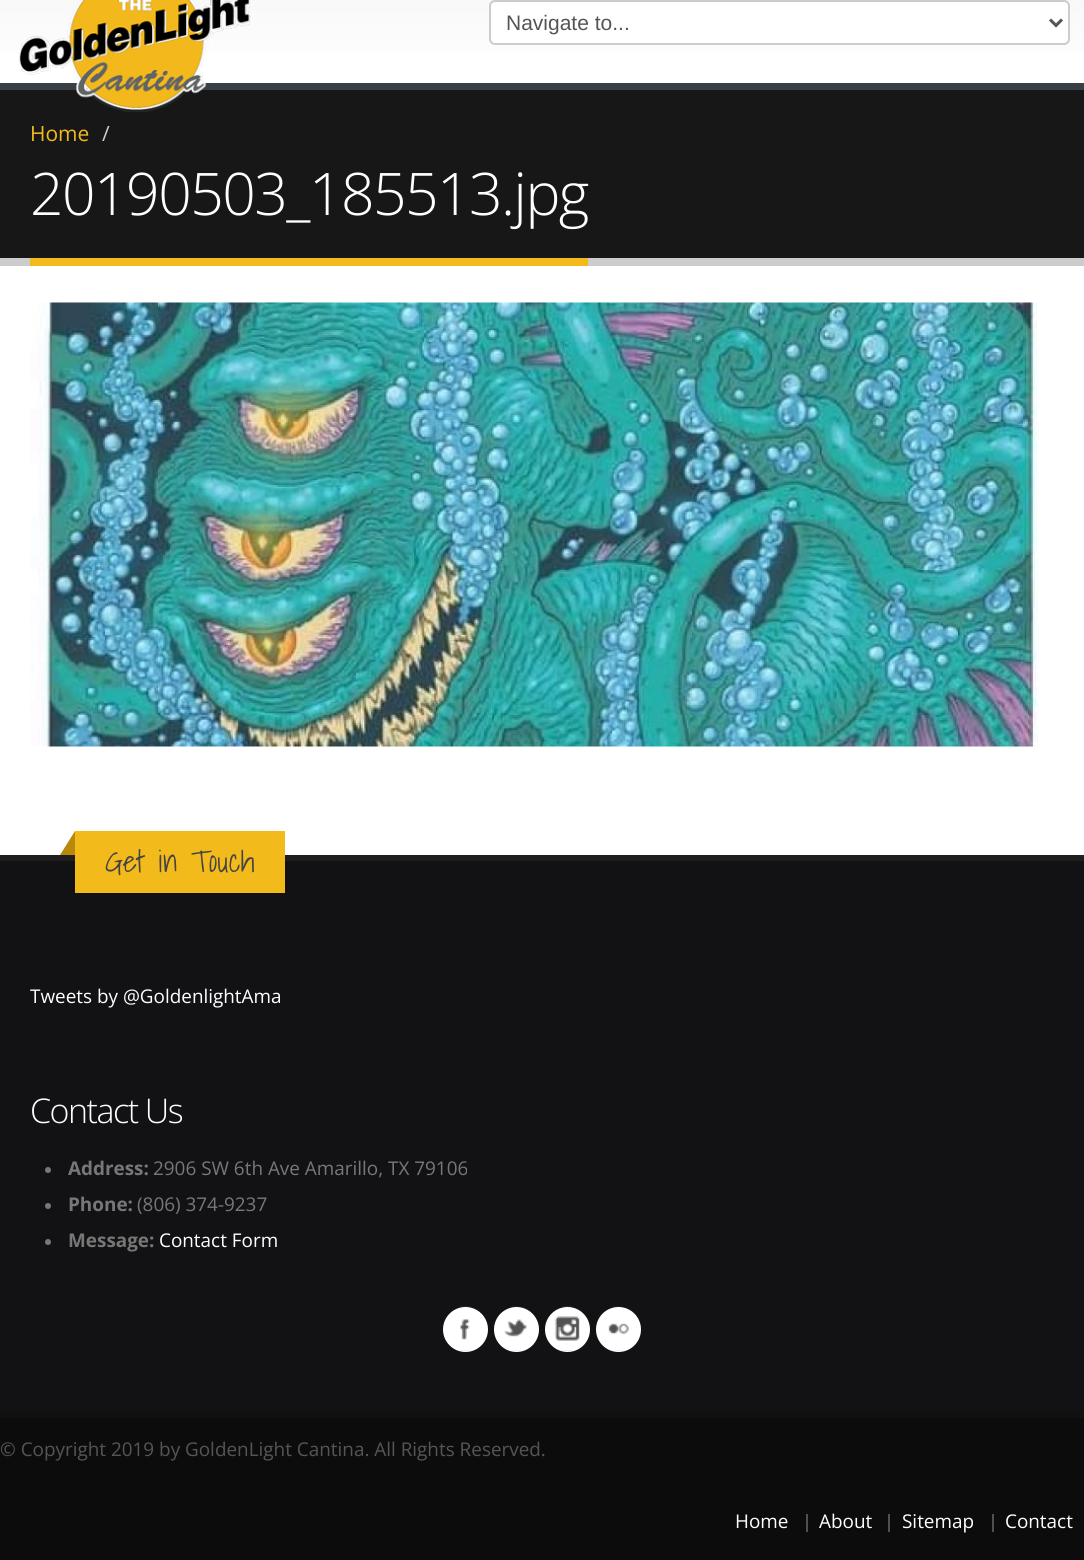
#include <cairo/cairo.h>
#include <math.h>
#include <stddef.h>

typedef struct { double x, y; const char *s; } line_t;
typedef struct { double x, y, w, h; unsigned color; } box_t;
static cairo_t *cr;

static void rgb(unsigned color)
{
	cairo_set_source_rgb(cr, (color >> 16) / 255.0, (color >> 8 & 255) / 255.0, (color & 255) / 255.0);
}

static void tracked(double x, double y, const char *s, double letter, double word)
{
	cairo_move_to(cr, x, y);
	while (*s) {
		char ch[5] = {0};
		int n = 0;
		do ch[n++] = *s++; while ((*s & 0xC0) == 0x80);
		cairo_show_text(cr, ch);
		cairo_rel_move_to(cr, letter + word * (*ch == ' '), 0);
	}
}

static void rrect(double x, double y, double w, double h, double r)
{
	cairo_new_sub_path(cr);
	cairo_arc(cr, x + w - r, y + h - r, r, 0, M_PI / 2);
	cairo_arc(cr, x + r, y + h - r, r, M_PI / 2, M_PI);
	cairo_arc(cr, x + r, y + r, r, M_PI, 1.5 * M_PI);
	cairo_arc(cr, x + w - r, y + r, r, 1.5 * M_PI, 2 * M_PI);
	cairo_close_path(cr);
}

static void image(const char *path, double x, double y, double w, double h)
{
	cairo_surface_t *image = cairo_image_surface_create_from_png(path);
	cairo_save(cr);
	cairo_set_source_surface(cr, image, x, y);
	cairo_rectangle(cr, x, y, w, h);
	cairo_fill(cr);
	cairo_restore(cr);
	cairo_surface_destroy(image);
}

int main(void) {
	cairo_surface_t *surface = cairo_image_surface_create(CAIRO_FORMAT_RGB24, 1084, 1560);
	cr = cairo_create(surface);
	cairo_font_options_t *options = cairo_font_options_create();
	cairo_font_options_set_hint_metrics(options, CAIRO_HINT_METRICS_OFF);
	cairo_font_options_set_hint_style(options, CAIRO_HINT_STYLE_NONE);
	cairo_set_font_options(cr, options);
	cairo_set_miter_limit(cr, 4);
	cairo_pattern_t *gradient;
	rgb(0xffffff);
	cairo_paint(cr);
	gradient = cairo_pattern_create_linear(542, -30, 542, 83);
	cairo_pattern_add_color_stop_rgba(gradient, 0, 0.965, 0.965, 0.965, 1);
	cairo_pattern_add_color_stop_rgba(gradient, 1, 1, 1, 1, 1);
	cairo_set_source(cr, gradient);
	cairo_pattern_destroy(gradient);
	cairo_rectangle(cr, 0, 0, 1084, 52);
	cairo_fill(cr);
	rgb(0x171717);
	cairo_rectangle(cr, 0, 90, 1084, 168);
	cairo_fill(cr);
	rgb(0x384045);
	cairo_rectangle(cr, 0, 83, 1084, 7);
	cairo_fill(cr);
	image("img/1.png", 19, 0, 233, 112);
	rgb(0xffffff);
	rrect(490, 1, 579, 43, 5);
	cairo_fill_preserve(cr);
	rgb(0xcccccc);
	cairo_stroke(cr);
	cairo_new_path(cr);
	cairo_move_to(cr, 1050, 19.5);
	cairo_line_to(cr, 1056, 25.5);
	cairo_line_to(cr, 1062, 19.5);
	rgb(0x555555);
	cairo_set_line_width(cr, 3);
	cairo_stroke(cr);
	rgb(0xcccccc);
	cairo_rectangle(cr, 0, 258, 1084, 8);
	cairo_fill(cr);
	rgb(0xf3ba1c);
	cairo_rectangle(cr, 30, 258, 558, 8);
	cairo_fill(cr);
	image("img/2.png", 30, 302, 1009, 445);
	{
		static const box_t items[] = {
			{0, 861, 1084, 551, 0x121214},
			{0, 855, 1084, 6, 0x1f1f1f},
			{75, 831, 210, 62, 0xf3ba1c},
		};
		for (size_t i = 0; i < sizeof items / sizeof *items; i++) {
			rgb(items[i].color);
			cairo_rectangle(cr, items[i].x, items[i].y, items[i].w, items[i].h);
			cairo_fill(cr);
		}
	}
	rgb(0xb98a0a);
	cairo_new_path(cr);
	cairo_move_to(cr, 75, 831);
	cairo_line_to(cr, 75, 855);
	cairo_line_to(cr, 60, 855);
	cairo_close_path(cr);
	cairo_fill(cr);
	rgb(0x777777);
	cairo_arc(cr, 48, 1170, 3, 0, 2 * M_PI);
	cairo_fill(cr);
	cairo_arc(cr, 48, 1206, 3, 0, 2 * M_PI);
	cairo_fill(cr);
	cairo_arc(cr, 48, 1242, 3, 0, 2 * M_PI);
	cairo_fill(cr);
	rgb(0xffffff);
	cairo_arc(cr, 465.5, 1329.5, 22.5, 0, 2 * M_PI);
	cairo_fill(cr);
	image("img/3.png", 459, 1306, 12, 45);
	cairo_arc(cr, 516.5, 1329.5, 22.5, 0, 2 * M_PI);
	cairo_fill(cr);
	image("img/4.png", 504, 1306, 23, 45);
	cairo_arc(cr, 567.5, 1329.5, 22.5, 0, 2 * M_PI);
	cairo_fill(cr);
	image("img/5.png", 554, 1306, 26, 45);
	cairo_arc(cr, 618.5, 1329.5, 22.5, 0, 2 * M_PI);
	cairo_fill(cr);
	image("img/6.png", 608, 1306, 21, 45);
	{
		static const box_t items[] = {
			{0, 1418, 1084, 142, 0x0c0c0c},
			{0, 1412, 1084, 6, 0x111111},
			{806, 1514, 2, 18, 0x505050},
			{888, 1514, 2, 18, 0x505050},
			{992, 1514, 2, 18, 0x505050},
		};
		for (size_t i = 0; i < sizeof items / sizeof *items; i++) {
			rgb(items[i].color);
			cairo_rectangle(cr, items[i].x, items[i].y, items[i].w, items[i].h);
			cairo_fill(cr);
		}
	}
	cairo_select_font_face(cr, "Liberation Sans", CAIRO_FONT_SLANT_NORMAL, CAIRO_FONT_WEIGHT_NORMAL);
	cairo_set_font_size(cr, 21);
	rgb(0x555555);
	cairo_move_to(cr, 506, 30);
	cairo_show_text(cr, "Navigate to...");
	cairo_select_font_face(cr, "Open Sans", CAIRO_FONT_SLANT_NORMAL, CAIRO_FONT_WEIGHT_NORMAL);
	rgb(0xf3ba1c);
	cairo_move_to(cr, 30, 141);
	cairo_show_text(cr, "Home");
	rgb(0xcccccc);
	cairo_move_to(cr, 102, 141);
	cairo_show_text(cr, "/");
	cairo_select_font_face(cr, "Open Sans Light", CAIRO_FONT_SLANT_NORMAL, CAIRO_FONT_WEIGHT_NORMAL);
	cairo_set_font_size(cr, 58.75);
	rgb(0xffffff);
	tracked(30, 215, "20190503_185513.jpg", -1.5, 0);
	cairo_select_font_face(cr, "Shadows Into Light Light", CAIRO_FONT_SLANT_NORMAL, CAIRO_FONT_WEIGHT_NORMAL);
	cairo_set_font_size(cr, 30.25);
	rgb(0x444444);
	cairo_move_to(cr, 105, 872);
	cairo_show_text(cr, "Get in Touch");
	cairo_select_font_face(cr, "Open Sans", CAIRO_FONT_SLANT_NORMAL, CAIRO_FONT_WEIGHT_NORMAL);
	cairo_set_font_size(cr, 18.9);
	rgb(0xffffff);
	cairo_move_to(cr, 30, 1003);
	cairo_show_text(cr, "Tweets by @GoldenlightAma");
	cairo_select_font_face(cr, "Open Sans Light", CAIRO_FONT_SLANT_NORMAL, CAIRO_FONT_WEIGHT_NORMAL);
	cairo_set_font_size(cr, 34);
	tracked(30, 1123, "Contact Us", -1.5, 0);
	cairo_select_font_face(cr, "Open Sans", CAIRO_FONT_SLANT_NORMAL, CAIRO_FONT_WEIGHT_BOLD);
	cairo_set_font_size(cr, 18.9);
	rgb(0x777777);
	cairo_move_to(cr, 68, 1175);
	cairo_show_text(cr, "Address:");
	cairo_select_font_face(cr, "Open Sans", CAIRO_FONT_SLANT_NORMAL, CAIRO_FONT_WEIGHT_NORMAL);
	cairo_move_to(cr, 153, 1175);
	cairo_show_text(cr, "2906 SW 6th Ave Amarillo, TX 79106");
	cairo_select_font_face(cr, "Open Sans", CAIRO_FONT_SLANT_NORMAL, CAIRO_FONT_WEIGHT_BOLD);
	cairo_move_to(cr, 68, 1211);
	cairo_show_text(cr, "Phone:");
	cairo_select_font_face(cr, "Open Sans", CAIRO_FONT_SLANT_NORMAL, CAIRO_FONT_WEIGHT_NORMAL);
	cairo_move_to(cr, 137, 1211);
	cairo_show_text(cr, "(806) 374-9237");
	cairo_select_font_face(cr, "Open Sans", CAIRO_FONT_SLANT_NORMAL, CAIRO_FONT_WEIGHT_BOLD);
	cairo_move_to(cr, 68, 1247);
	cairo_show_text(cr, "Message:");
	cairo_select_font_face(cr, "Open Sans", CAIRO_FONT_SLANT_NORMAL, CAIRO_FONT_WEIGHT_NORMAL);
	rgb(0xffffff);
	cairo_move_to(cr, 159, 1247);
	cairo_show_text(cr, "Contact Form");
	rgb(0x555555);
	cairo_move_to(cr, 0, 1456);
	cairo_show_text(cr, "© Copyright 2019 by GoldenLight Cantina. All Rights Reserved.");
	rgb(0xffffff);
	{
		static const line_t items[] = {
			{735, 1528, "Home"},
			{819, 1528, "About"},
			{902, 1528, "Sitemap"},
			{1005, 1528, "Contact"},
		};
		for (size_t i = 0; i < sizeof items / sizeof *items; i++) {
			cairo_move_to(cr, items[i].x, items[i].y);
			cairo_show_text(cr, items[i].s);
		}
	}
	cairo_surface_write_to_png(surface, "page.png");
	cairo_font_options_destroy(options);
	cairo_destroy(cr);
	cairo_surface_destroy(surface);
	return 0;
}
